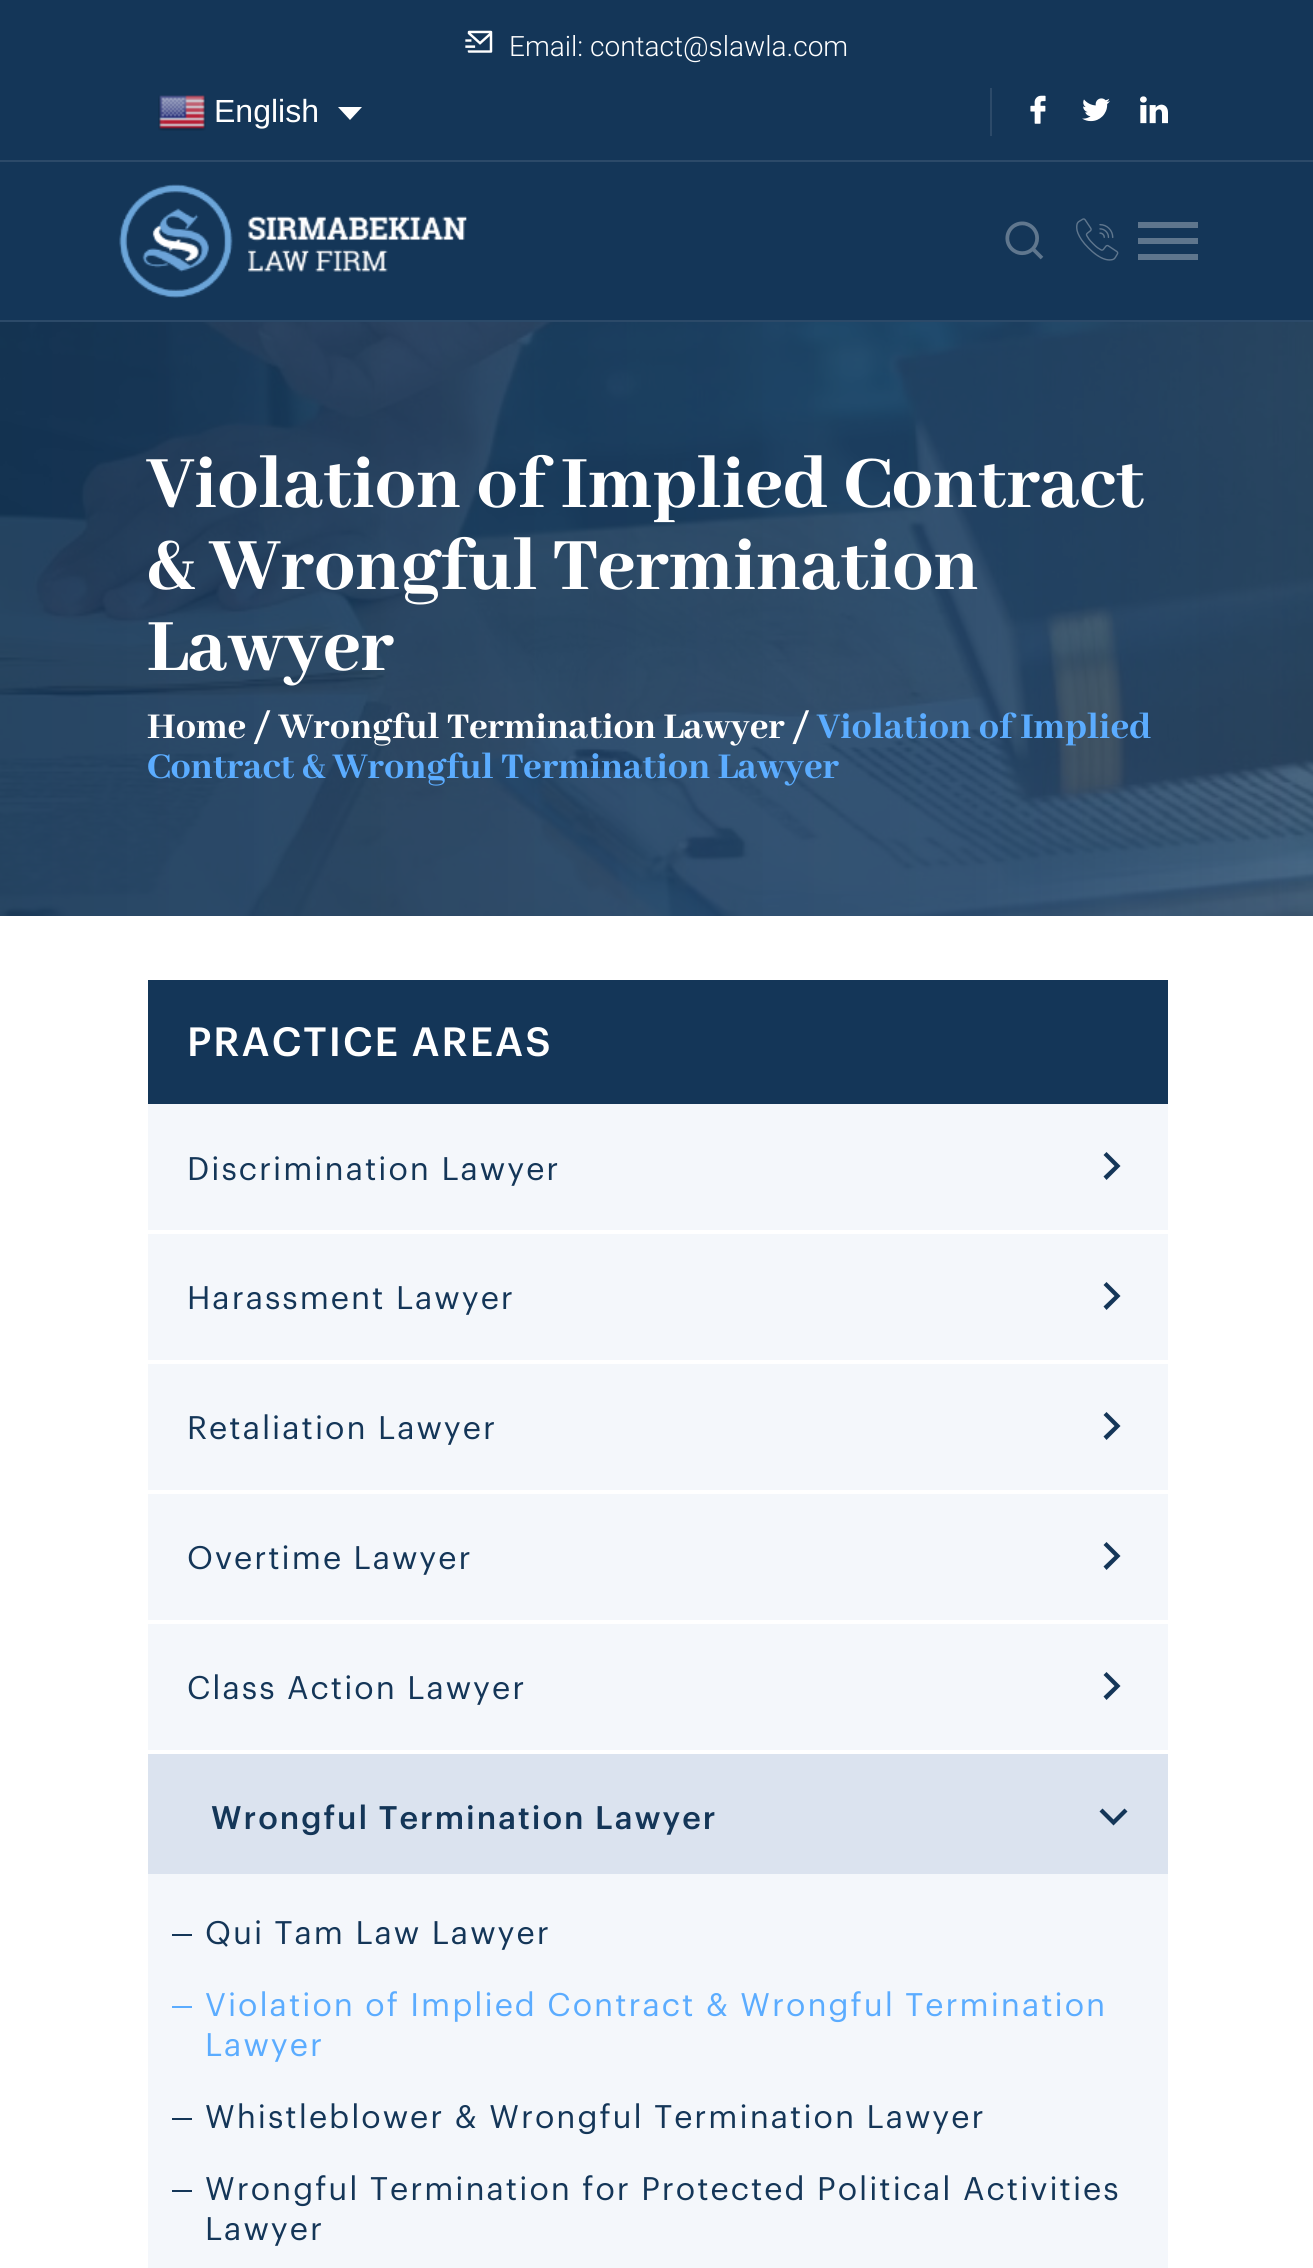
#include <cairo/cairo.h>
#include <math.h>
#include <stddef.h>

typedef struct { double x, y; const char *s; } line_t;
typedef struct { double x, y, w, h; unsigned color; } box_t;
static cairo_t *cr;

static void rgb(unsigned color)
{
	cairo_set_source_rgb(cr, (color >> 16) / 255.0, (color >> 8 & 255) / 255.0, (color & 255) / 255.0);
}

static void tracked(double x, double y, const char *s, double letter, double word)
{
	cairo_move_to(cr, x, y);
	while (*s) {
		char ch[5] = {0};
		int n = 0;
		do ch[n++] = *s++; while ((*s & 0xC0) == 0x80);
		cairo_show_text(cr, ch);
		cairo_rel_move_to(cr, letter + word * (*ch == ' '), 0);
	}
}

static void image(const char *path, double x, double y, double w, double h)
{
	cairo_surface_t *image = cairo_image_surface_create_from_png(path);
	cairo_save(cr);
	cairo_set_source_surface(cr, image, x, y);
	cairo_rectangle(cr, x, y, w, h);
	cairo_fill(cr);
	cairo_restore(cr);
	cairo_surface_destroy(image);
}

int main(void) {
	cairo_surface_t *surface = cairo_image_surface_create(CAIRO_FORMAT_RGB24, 1313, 2268);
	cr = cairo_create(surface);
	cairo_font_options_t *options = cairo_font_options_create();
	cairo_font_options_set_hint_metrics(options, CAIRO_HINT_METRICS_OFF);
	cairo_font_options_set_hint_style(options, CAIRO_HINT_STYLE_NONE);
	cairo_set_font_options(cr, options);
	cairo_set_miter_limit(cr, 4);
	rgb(0xffffff);
	cairo_paint(cr);
	{
		static const box_t items[] = {
			{0, 0, 1313, 320, 0x143658},
			{0, 320, 1313, 2, 0x2c4a69},
			{0, 160, 1313, 2, 0x2c4a69},
		};
		for (size_t i = 0; i < sizeof items / sizeof *items; i++) {
			rgb(items[i].color);
			cairo_rectangle(cr, items[i].x, items[i].y, items[i].w, items[i].h);
			cairo_fill(cr);
		}
	}
	image("img/1.png", 465, 30, 28, 23);
	image("img/2.png", 158, 95, 48, 36);
	rgb(0xffffff);
	cairo_new_path(cr);
	cairo_move_to(cr, 338, 107);
	cairo_line_to(cr, 350, 120);
	cairo_line_to(cr, 362, 107);
	cairo_close_path(cr);
	cairo_fill(cr);
	rgb(0x2c4a69);
	cairo_rectangle(cr, 990, 88, 2, 48);
	cairo_fill(cr);
	image("img/3.png", 1030, 95, 16, 29);
	image("img/4.png", 1082, 98, 28, 24);
	image("img/5.png", 1140, 96, 28, 28);
	image("img/6.png", 119, 184, 348, 114);
	image("img/7.png", 1005, 221, 39, 39);
	image("img/8.png", 1076, 218, 43, 43);
	{
		static const box_t items[] = {
			{1138, 222, 60, 6, 0x5f768d},
			{1138, 238, 60, 6, 0x5f768d},
			{1138, 254, 60, 6, 0x5f768d},
		};
		for (size_t i = 0; i < sizeof items / sizeof *items; i++) {
			rgb(items[i].color);
			cairo_rectangle(cr, items[i].x, items[i].y, items[i].w, items[i].h);
			cairo_fill(cr);
		}
	}
	image("img/9.png", 0, 322, 1313, 594);
	rgb(0x143658);
	cairo_rectangle(cr, 148, 980, 1020, 124);
	cairo_fill(cr);
	rgb(0xf4f7fb);
	cairo_rectangle(cr, 148, 1104, 1020, 126);
	cairo_fill(cr);
	rgb(0x143658);
	cairo_new_path(cr);
	cairo_move_to(cr, 1114.5, 1166);
	cairo_line_to(cr, 1103.5, 1155);
	cairo_line_to(cr, 1106.5, 1152);
	cairo_line_to(cr, 1120.5, 1166);
	cairo_line_to(cr, 1106.5, 1180);
	cairo_line_to(cr, 1103.5, 1176.5);
	cairo_close_path(cr);
	cairo_fill(cr);
	rgb(0xf4f7fb);
	cairo_rectangle(cr, 148, 1234, 1020, 126);
	cairo_fill(cr);
	rgb(0x143658);
	cairo_new_path(cr);
	cairo_move_to(cr, 1114.5, 1296);
	cairo_line_to(cr, 1103.5, 1285);
	cairo_line_to(cr, 1106.5, 1282);
	cairo_line_to(cr, 1120.5, 1296);
	cairo_line_to(cr, 1106.5, 1310);
	cairo_line_to(cr, 1103.5, 1306.5);
	cairo_close_path(cr);
	cairo_fill(cr);
	rgb(0xf4f7fb);
	cairo_rectangle(cr, 148, 1364, 1020, 126);
	cairo_fill(cr);
	rgb(0x143658);
	cairo_new_path(cr);
	cairo_move_to(cr, 1114.5, 1426);
	cairo_line_to(cr, 1103.5, 1415);
	cairo_line_to(cr, 1106.5, 1412);
	cairo_line_to(cr, 1120.5, 1426);
	cairo_line_to(cr, 1106.5, 1440);
	cairo_line_to(cr, 1103.5, 1436.5);
	cairo_close_path(cr);
	cairo_fill(cr);
	rgb(0xf4f7fb);
	cairo_rectangle(cr, 148, 1494, 1020, 126);
	cairo_fill(cr);
	rgb(0x143658);
	cairo_new_path(cr);
	cairo_move_to(cr, 1114.5, 1556);
	cairo_line_to(cr, 1103.5, 1545);
	cairo_line_to(cr, 1106.5, 1542);
	cairo_line_to(cr, 1120.5, 1556);
	cairo_line_to(cr, 1106.5, 1570);
	cairo_line_to(cr, 1103.5, 1566.5);
	cairo_close_path(cr);
	cairo_fill(cr);
	rgb(0xf4f7fb);
	cairo_rectangle(cr, 148, 1624, 1020, 126);
	cairo_fill(cr);
	rgb(0x143658);
	cairo_new_path(cr);
	cairo_move_to(cr, 1114.5, 1686);
	cairo_line_to(cr, 1103.5, 1675);
	cairo_line_to(cr, 1106.5, 1672);
	cairo_line_to(cr, 1120.5, 1686);
	cairo_line_to(cr, 1106.5, 1700);
	cairo_line_to(cr, 1103.5, 1696.5);
	cairo_close_path(cr);
	cairo_fill(cr);
	rgb(0xdbe3ef);
	cairo_rectangle(cr, 148, 1754, 1020, 120);
	cairo_fill(cr);
	rgb(0x143658);
	cairo_new_path(cr);
	cairo_move_to(cr, 1113.5, 1819.5);
	cairo_line_to(cr, 1124.5, 1808.5);
	cairo_line_to(cr, 1127.5, 1811.5);
	cairo_line_to(cr, 1113.5, 1825.5);
	cairo_line_to(cr, 1099.5, 1811.5);
	cairo_line_to(cr, 1102.5, 1808.5);
	cairo_close_path(cr);
	cairo_fill(cr);
	{
		static const box_t items[] = {
			{148, 1874, 1020, 394, 0xf4f7fb},
			{172, 1934, 20, 2, 0x143658},
			{172, 2006, 20, 2, 0x5bacff},
			{172, 2118, 20, 2, 0x143658},
			{172, 2190, 20, 2, 0x143658},
		};
		for (size_t i = 0; i < sizeof items / sizeof *items; i++) {
			rgb(items[i].color);
			cairo_rectangle(cr, items[i].x, items[i].y, items[i].w, items[i].h);
			cairo_fill(cr);
		}
	}
	cairo_select_font_face(cr, "Roboto Light", CAIRO_FONT_SLANT_NORMAL, CAIRO_FONT_WEIGHT_NORMAL);
	cairo_set_font_size(cr, 28);
	rgb(0xffffff);
	cairo_move_to(cr, 509, 56);
	cairo_show_text(cr, "Email: contact@slawla.com");
	cairo_select_font_face(cr, "Liberation Sans", CAIRO_FONT_SLANT_NORMAL, CAIRO_FONT_WEIGHT_NORMAL);
	cairo_set_font_size(cr, 32);
	cairo_move_to(cr, 214, 122);
	cairo_show_text(cr, "English");
	cairo_select_font_face(cr, "Abhaya Libre ExtraBold ExtraBold", CAIRO_FONT_SLANT_NORMAL, CAIRO_FONT_WEIGHT_NORMAL);
	cairo_set_font_size(cr, 81.5);
	{
		static const line_t items[] = {
			{147, 507, "Violation of Implied Contract"},
			{147, 589, "& Wrongful Termination"},
			{147, 670, "Lawyer"},
		};
		for (size_t i = 0; i < sizeof items / sizeof *items; i++) {
			cairo_move_to(cr, items[i].x, items[i].y);
			cairo_show_text(cr, items[i].s);
		}
	}
	cairo_set_font_size(cr, 40);
	cairo_move_to(cr, 147, 738);
	cairo_show_text(cr, "Home / Wrongful Termination Lawyer /");
	rgb(0x5bacff);
	cairo_move_to(cr, 817, 738);
	cairo_show_text(cr, "Violation of Implied");
	cairo_move_to(cr, 147, 778);
	cairo_show_text(cr, "Contract & Wrongful Termination Lawyer");
	cairo_select_font_face(cr, "Graphik Medium", CAIRO_FONT_SLANT_NORMAL, CAIRO_FONT_WEIGHT_NORMAL);
	rgb(0xffffff);
	tracked(187, 1056, "PRACTICE AREAS", 2, 0);
	cairo_select_font_face(cr, "Graphik", CAIRO_FONT_SLANT_NORMAL, CAIRO_FONT_WEIGHT_NORMAL);
	cairo_set_font_size(cr, 32);
	rgb(0x143658);
	{
		static const line_t items[] = {
			{187, 1180, "Discrimination Lawyer"},
			{187, 1309, "Harassment Lawyer"},
			{187, 1439, "Retaliation Lawyer"},
			{187, 1569, "Overtime Lawyer"},
			{187, 1699, "Class Action Lawyer"},
		};
		for (size_t i = 0; i < sizeof items / sizeof *items; i++) {
			tracked(items[i].x, items[i].y, items[i].s, 2, 0);
		}
	}
	cairo_select_font_face(cr, "Graphik Medium", CAIRO_FONT_SLANT_NORMAL, CAIRO_FONT_WEIGHT_NORMAL);
	tracked(211, 1829, "Wrongful Termination Lawyer", 2, 0);
	cairo_select_font_face(cr, "Graphik", CAIRO_FONT_SLANT_NORMAL, CAIRO_FONT_WEIGHT_NORMAL);
	tracked(205, 1944, "Qui Tam Law Lawyer", 2, 0);
	rgb(0x5bacff);
	tracked(205, 2016, "Violation of Implied Contract & Wrongful Termination", 2, 0);
	tracked(205, 2056, "Lawyer", 2, 0);
	rgb(0x143658);
	{
		static const line_t items[] = {
			{205, 2128, "Whistleblower & Wrongful Termination Lawyer"},
			{205, 2200, "Wrongful Termination for Protected Political Activities"},
			{205, 2240, "Lawyer"},
		};
		for (size_t i = 0; i < sizeof items / sizeof *items; i++) {
			tracked(items[i].x, items[i].y, items[i].s, 2, 0);
		}
	}
	cairo_surface_write_to_png(surface, "page.png");
	cairo_font_options_destroy(options);
	cairo_destroy(cr);
	cairo_surface_destroy(surface);
	return 0;
}
